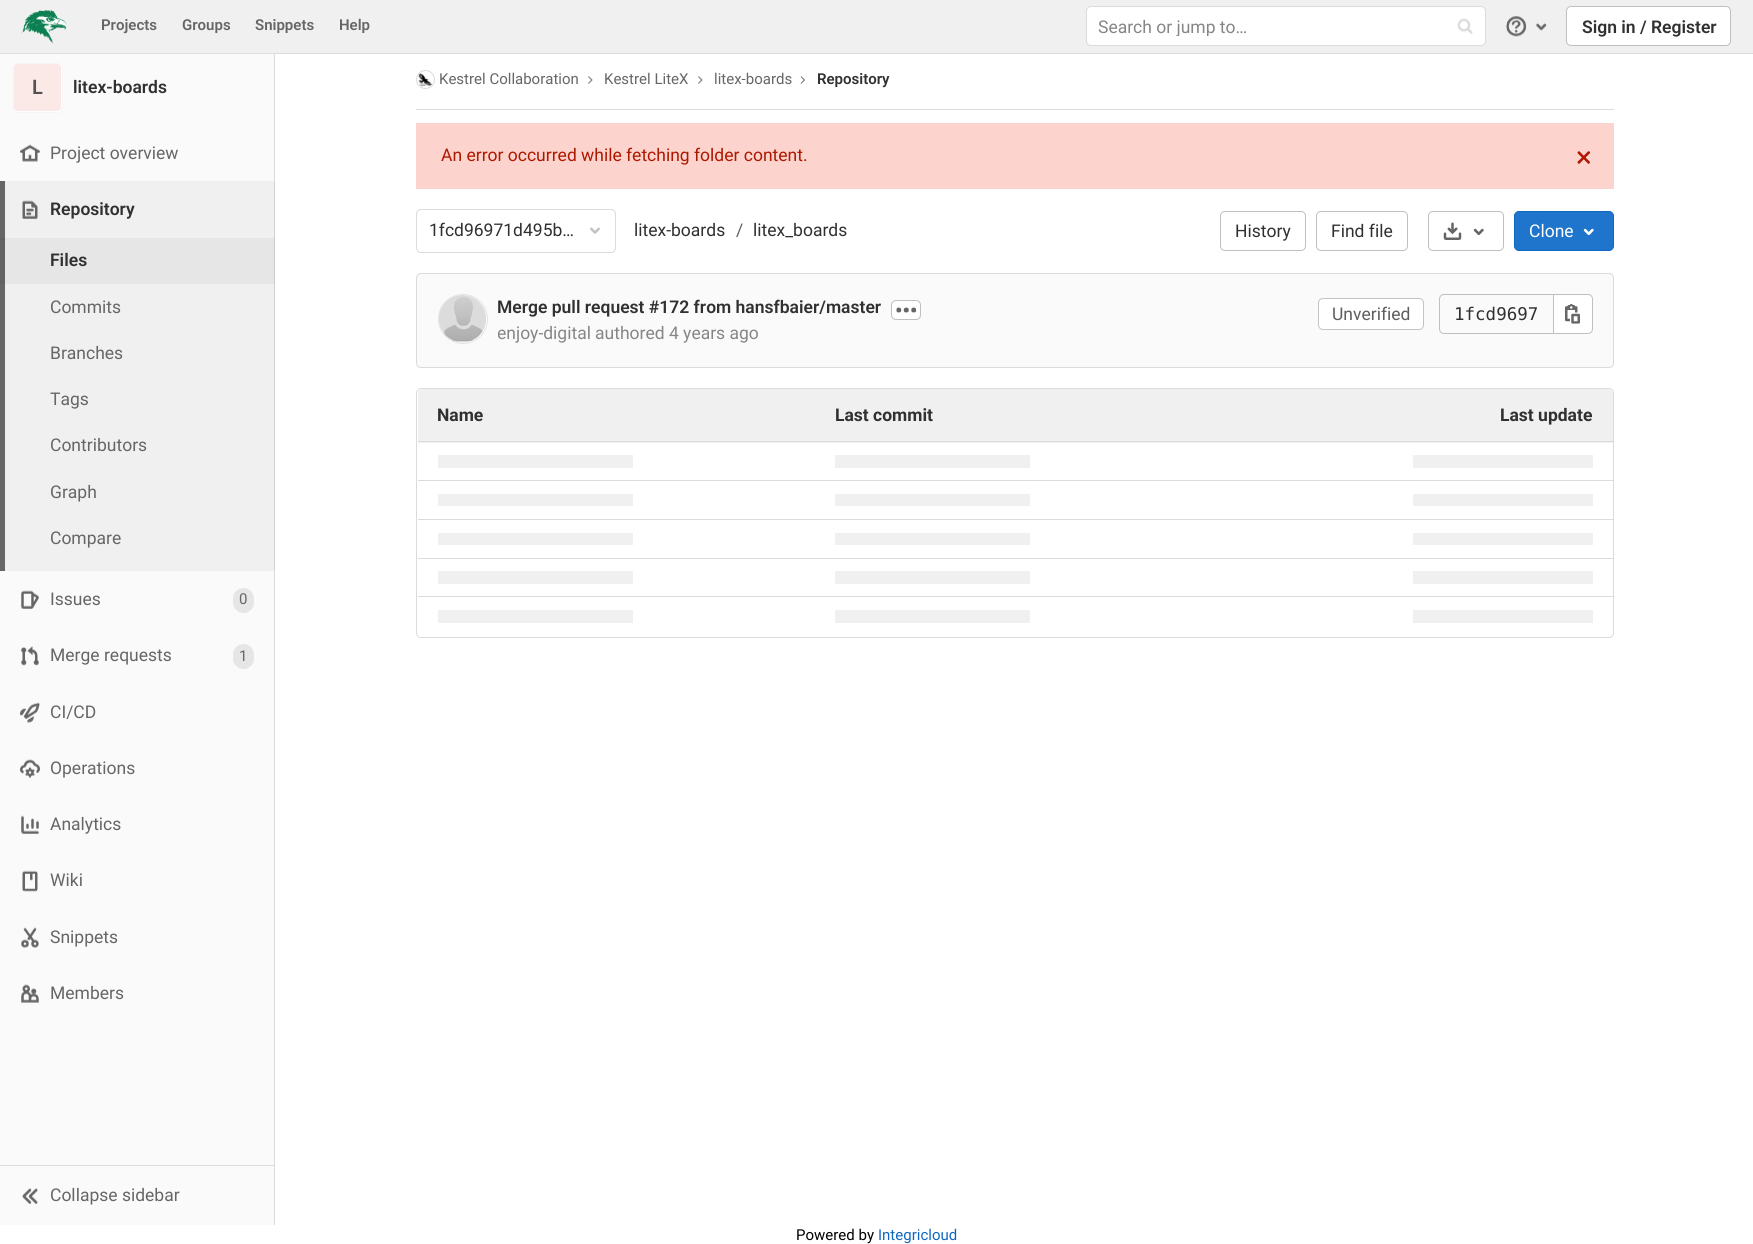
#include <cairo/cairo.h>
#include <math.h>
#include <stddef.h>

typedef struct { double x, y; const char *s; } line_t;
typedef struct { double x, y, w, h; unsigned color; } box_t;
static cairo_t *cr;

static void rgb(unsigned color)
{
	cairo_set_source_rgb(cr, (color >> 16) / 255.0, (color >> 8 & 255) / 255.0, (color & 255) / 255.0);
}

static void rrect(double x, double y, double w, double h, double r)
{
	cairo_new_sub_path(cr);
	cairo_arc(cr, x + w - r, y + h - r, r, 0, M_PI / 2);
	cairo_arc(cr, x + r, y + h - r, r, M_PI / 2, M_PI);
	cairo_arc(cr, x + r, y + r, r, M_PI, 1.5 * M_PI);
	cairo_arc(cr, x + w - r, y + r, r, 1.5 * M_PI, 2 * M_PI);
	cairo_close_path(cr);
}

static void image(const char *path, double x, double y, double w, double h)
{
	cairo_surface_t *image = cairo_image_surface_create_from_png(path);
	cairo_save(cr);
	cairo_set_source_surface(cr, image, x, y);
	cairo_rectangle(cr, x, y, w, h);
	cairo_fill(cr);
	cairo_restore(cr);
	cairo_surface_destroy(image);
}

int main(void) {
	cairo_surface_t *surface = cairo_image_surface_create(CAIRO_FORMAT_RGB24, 1753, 1244);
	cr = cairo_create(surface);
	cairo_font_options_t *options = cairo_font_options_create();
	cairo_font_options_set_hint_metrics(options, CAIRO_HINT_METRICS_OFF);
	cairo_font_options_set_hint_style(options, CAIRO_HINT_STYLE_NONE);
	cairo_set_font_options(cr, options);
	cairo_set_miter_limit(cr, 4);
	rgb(0xffffff);
	cairo_paint(cr);
	rgb(0xdbdbdb);
	cairo_rectangle(cr, 274, 50, 1, 1175);
	cairo_fill(cr);
	cairo_new_path(cr);
	cairo_move_to(cr, 0, 52);
	cairo_line_to(cr, 0, 54);
	cairo_line_to(cr, 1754, 54);
	cairo_line_to(cr, 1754, 1);
	cairo_line_to(cr, 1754, 52);
	cairo_close_path(cr);
	cairo_fill(cr);
	rgb(0xf0f0f0);
	cairo_rectangle(cr, 0, 0, 1753, 53);
	cairo_fill(cr);
	image("img/1.png", 21, 10, 46, 34);
	rgb(0xffffff);
	rrect(1086.5, 6.5, 399, 39, 4.5);
	cairo_fill_preserve(cr);
	rgb(0xdbdbdb);
	cairo_set_line_width(cr, 1);
	cairo_stroke(cr);
	image("img/2.png", 1457, 18, 16, 17);
	image("img/3.png", 1506, 16, 21, 21);
	image("img/4.png", 1536, 23, 11, 8);
	rgb(0xffffff);
	rrect(1566.5, 6.5, 164, 39, 4.5);
	cairo_fill_preserve(cr);
	rgb(0xbfbfbf);
	cairo_stroke(cr);
	{
		static const box_t items[] = {
			{0, 54, 274, 1171, 0xfafafa},
			{5, 181, 269, 390, 0xf0f0f0},
			{5, 238, 269, 46, 0xe6e6e6},
			{274, 181, 1, 390, 0xd2d2d2},
			{274, 238, 1, 46, 0xcacaca},
		};
		for (size_t i = 0; i < sizeof items / sizeof *items; i++) {
			rgb(items[i].color);
			cairo_rectangle(cr, items[i].x, items[i].y, items[i].w, items[i].h);
			cairo_fill(cr);
		}
	}
	rgb(0xffffff);
	rrect(13.5, 63.5, 49, 49, 4.5);
	cairo_fill_preserve(cr);
	rgb(0xf5f5f5);
	cairo_stroke(cr);
	rgb(0xfbe9e7);
	rrect(14, 64, 47, 47, 4);
	cairo_fill(cr);
	image("img/5.png", 20, 144, 20, 18);
	rgb(0x666666);
	cairo_rectangle(cr, 0, 181, 5, 390);
	cairo_fill(cr);
	rgb(0x626262);
	cairo_rectangle(cr, 0, 238, 5, 46);
	cairo_fill(cr);
	image("img/6.png", 22, 200, 16, 19);
	image("img/7.png", 21, 590, 18, 19);
	rgb(0xe6e6e6);
	rrect(233, 588, 21, 25, 10.5);
	cairo_fill(cr);
	image("img/8.png", 21, 646, 18, 20);
	rrect(233, 644, 21, 25, 10.5);
	cairo_fill(cr);
	image("img/9.png", 20, 702, 20, 21);
	image("img/10.png", 20, 759, 20, 19);
	image("img/11.png", 21, 815, 18, 19);
	image("img/12.png", 22, 870, 16, 22);
	image("img/13.png", 21, 927, 18, 21);
	image("img/14.png", 21, 984, 18, 19);
	rgb(0xdbdbdb);
	cairo_rectangle(cr, 0, 1165, 274, 1);
	cairo_fill(cr);
	image("img/15.png", 22, 1188, 16, 16);
	cairo_rectangle(cr, 416, 109, 1198, 1);
	cairo_fill(cr);
	cairo_arc(cr, 425.5, 79.5, 9, 0, 2 * M_PI);
	cairo_stroke(cr);
	image("img/16.png", 418, 73, 14, 14);
	image("img/17.png", 588, 76, 5, 8);
	image("img/17.png", 698, 76, 5, 8);
	image("img/18.png", 800, 76, 5, 8);
	rgb(0xfdd4cd);
	cairo_rectangle(cr, 416, 123, 1198, 66);
	cairo_fill(cr);
	image("img/19.png", 1577, 151, 13, 13);
	rrect(416.5, 209.5, 199, 43, 4.5);
	rgb(0xdbdbdb);
	cairo_stroke(cr);
	image("img/20.png", 590, 227, 10, 7);
	rrect(1220.5, 211.5, 85, 39, 4.5);
	rgb(0xbfbfbf);
	cairo_stroke(cr);
	rrect(1316.5, 211.5, 91, 39, 4.5);
	cairo_stroke(cr);
	rrect(1428.5, 211.5, 75, 39, 4.5);
	cairo_stroke(cr);
	image("img/21.png", 1443, 222, 19, 18);
	image("img/22.png", 1473, 228, 11, 7);
	rgb(0x1f75cb);
	rrect(1514.5, 211.5, 99, 39, 4.5);
	cairo_fill_preserve(cr);
	rgb(0x1068bf);
	cairo_stroke(cr);
	image("img/23.png", 1583, 228, 11, 7);
	rgb(0xfafafa);
	rrect(416.5, 273.5, 1197, 94, 4.5);
	cairo_fill_preserve(cr);
	rgb(0xdbdbdb);
	cairo_stroke(cr);
	rgb(0xfdfdfd);
	cairo_arc(cr, 463, 319, 24.5, 0, 2 * M_PI);
	cairo_fill_preserve(cr);
	rgb(0xe3e3e3);
	cairo_stroke(cr);
	image("img/24.png", 439, 295, 47, 48);
	rgb(0xffffff);
	rrect(891.5, 300.5, 29, 19, 4.5);
	cairo_fill_preserve(cr);
	rgb(0xbfbfbf);
	cairo_stroke(cr);
	image("img/25.png", 896, 307, 21, 6);
	rgb(0xffffff);
	rrect(1318.5, 298.5, 105, 31, 4.5);
	cairo_fill_preserve(cr);
	rgb(0xc4c4c4);
	cairo_stroke(cr);
	cairo_new_path(cr);
	cairo_move_to(cr, 1444, 294.5);
	cairo_line_to(cr, 1553.5, 294.5);
	cairo_line_to(cr, 1553.5, 333.5);
	cairo_line_to(cr, 1444, 333.5);
	cairo_curve_to(cr, 1441.5, 333.5, 1439.5, 331.5, 1439.5, 329);
	cairo_line_to(cr, 1439.5, 299);
	cairo_curve_to(cr, 1439.5, 296.5, 1441.5, 294.5, 1444, 294.5);
	cairo_close_path(cr);
	rgb(0xbfbfbf);
	cairo_stroke(cr);
	rgb(0xffffff);
	cairo_new_path(cr);
	cairo_move_to(cr, 1553.5, 294.5);
	cairo_line_to(cr, 1588, 294.5);
	cairo_curve_to(cr, 1590.5, 294.5, 1592.5, 296.5, 1592.5, 299);
	cairo_line_to(cr, 1592.5, 329);
	cairo_curve_to(cr, 1592.5, 331.5, 1590.5, 333.5, 1588, 333.5);
	cairo_line_to(cr, 1553.5, 333.5);
	cairo_close_path(cr);
	cairo_fill_preserve(cr);
	rgb(0xbfbfbf);
	cairo_stroke(cr);
	image("img/26.png", 1565, 303, 15, 21);
	rrect(416.5, 388.5, 1197, 249, 4.5);
	rgb(0xdbdbdb);
	cairo_stroke(cr);
	cairo_save(cr);
	rrect(418, 389, 1195, 247, 4);
	cairo_clip(cr);
	rgb(0xf0f0f0);
	cairo_rectangle(cr, 418, 389, 1195, 1);
	cairo_fill(cr);
	cairo_rectangle(cr, 418, 390, 397, 53);
	cairo_fill(cr);
	cairo_restore(cr);
	rgb(0xf0f0f0);
	cairo_rectangle(cr, 815, 390, 399, 53);
	cairo_fill(cr);
	cairo_save(cr);
	rrect(418, 389, 1195, 247, 4);
	cairo_clip(cr);
	cairo_rectangle(cr, 1214, 390, 399, 53);
	cairo_fill(cr);
	cairo_restore(cr);
	{
		static const box_t items[] = {
			{418, 441, 1195, 1, 0xdbdbdb},
			{1413, 455, 180, 13, 0xf0f0f0},
			{438, 455, 195, 13, 0xf0f0f0},
			{835, 455, 195, 13, 0xf0f0f0},
			{418, 480, 1195, 1, 0xdbdbdb},
			{1413, 494, 180, 12, 0xf0f0f0},
			{438, 494, 195, 12, 0xf0f0f0},
			{835, 494, 195, 12, 0xf0f0f0},
			{418, 519, 1195, 1, 0xdbdbdb},
			{1413, 533, 180, 12, 0xf0f0f0},
			{438, 533, 195, 12, 0xf0f0f0},
			{835, 533, 195, 12, 0xf0f0f0},
			{418, 558, 1195, 1, 0xdbdbdb},
			{1413, 571, 180, 13, 0xf0f0f0},
			{438, 571, 195, 13, 0xf0f0f0},
			{835, 571, 195, 13, 0xf0f0f0},
			{418, 596, 1195, 1, 0xdbdbdb},
			{1413, 610, 180, 13, 0xf0f0f0},
			{438, 610, 195, 13, 0xf0f0f0},
			{835, 610, 195, 13, 0xf0f0f0},
		};
		for (size_t i = 0; i < sizeof items / sizeof *items; i++) {
			rgb(items[i].color);
			cairo_rectangle(cr, items[i].x, items[i].y, items[i].w, items[i].h);
			cairo_fill(cr);
		}
	}
	cairo_select_font_face(cr, "Roboto SemiBold", CAIRO_FONT_SLANT_NORMAL, CAIRO_FONT_WEIGHT_NORMAL);
	cairo_set_font_size(cr, 15);
	rgb(0x666666);
	{
		static const line_t items[] = {
			{101, 30, "Projects"},
			{182, 30, "Groups"},
			{255, 30, "Snippets"},
			{339, 30, "Help"},
		};
		for (size_t i = 0; i < sizeof items / sizeof *items; i++) {
			cairo_move_to(cr, items[i].x, items[i].y);
			cairo_show_text(cr, items[i].s);
		}
	}
	cairo_save(cr);
	cairo_rectangle(cr, 1098, 16, 352, 20);
	cairo_clip(cr);
	cairo_select_font_face(cr, "Roboto", CAIRO_FONT_SLANT_NORMAL, CAIRO_FONT_WEIGHT_NORMAL);
	cairo_set_font_size(cr, 17.5);
	rgb(0x868686);
	cairo_move_to(cr, 1098, 33);
	cairo_show_text(cr, "Search or jump to…");
	cairo_restore(cr);
	cairo_set_font_size(cr, 17.5);
	rgb(0x303030);
	cairo_move_to(cr, 1582, 33);
	cairo_show_text(cr, "Sign in / Register");
	cairo_set_font_size(cr, 20);
	rgb(0x525252);
	cairo_move_to(cr, 32, 94);
	cairo_show_text(cr, "L");
	cairo_set_font_size(cr, 17.5);
	rgb(0x303030);
	cairo_move_to(cr, 73, 93);
	cairo_show_text(cr, "litex-boards");
	cairo_select_font_face(cr, "Roboto", CAIRO_FONT_SLANT_NORMAL, CAIRO_FONT_WEIGHT_NORMAL);
	rgb(0x666666);
	cairo_move_to(cr, 50, 159);
	cairo_show_text(cr, "Project overview");
	cairo_select_font_face(cr, "Roboto SemiBold", CAIRO_FONT_SLANT_NORMAL, CAIRO_FONT_WEIGHT_NORMAL);
	rgb(0x303030);
	cairo_move_to(cr, 50, 215);
	cairo_show_text(cr, "Repository");
	cairo_move_to(cr, 50, 266);
	cairo_show_text(cr, "Files");
	cairo_select_font_face(cr, "Roboto", CAIRO_FONT_SLANT_NORMAL, CAIRO_FONT_WEIGHT_NORMAL);
	rgb(0x666666);
	{
		static const line_t items[] = {
			{50, 313, "Commits"},
			{50, 359, "Branches"},
			{50, 405, "Tags"},
			{50, 451, "Contributors"},
			{50, 498, "Graph"},
			{50, 544, "Compare"},
			{50, 605, "Issues"},
		};
		for (size_t i = 0; i < sizeof items / sizeof *items; i++) {
			cairo_move_to(cr, items[i].x, items[i].y);
			cairo_show_text(cr, items[i].s);
		}
	}
	cairo_set_font_size(cr, 15);
	cairo_move_to(cr, 239, 604);
	cairo_show_text(cr, "0");
	cairo_set_font_size(cr, 17.5);
	cairo_move_to(cr, 50, 661);
	cairo_show_text(cr, "Merge requests");
	cairo_set_font_size(cr, 15);
	cairo_move_to(cr, 239, 661);
	cairo_show_text(cr, "1");
	cairo_set_font_size(cr, 17.5);
	{
		static const line_t items[] = {
			{50, 718, "CI/CD"},
			{50, 774, "Operations"},
			{50, 830, "Analytics"},
			{50, 886, "Wiki"},
			{50, 943, "Snippets"},
			{50, 999, "Members"},
			{50, 1201, "Collapse sidebar"},
		};
		for (size_t i = 0; i < sizeof items / sizeof *items; i++) {
			cairo_move_to(cr, items[i].x, items[i].y);
			cairo_show_text(cr, items[i].s);
		}
	}
	cairo_set_font_size(cr, 15);
	{
		static const line_t items[] = {
			{439, 84, "Kestrel Collaboration"},
			{604, 84, "Kestrel LiteX"},
			{714, 84, "litex-boards"},
		};
		for (size_t i = 0; i < sizeof items / sizeof *items; i++) {
			cairo_move_to(cr, items[i].x, items[i].y);
			cairo_show_text(cr, items[i].s);
		}
	}
	cairo_select_font_face(cr, "Roboto SemiBold", CAIRO_FONT_SLANT_NORMAL, CAIRO_FONT_WEIGHT_NORMAL);
	rgb(0x303030);
	cairo_move_to(cr, 817, 84);
	cairo_show_text(cr, "Repository");
	cairo_select_font_face(cr, "Roboto", CAIRO_FONT_SLANT_NORMAL, CAIRO_FONT_WEIGHT_NORMAL);
	cairo_set_font_size(cr, 17.5);
	rgb(0xae1800);
	cairo_move_to(cr, 441, 161);
	cairo_show_text(cr, "An error occurred while fetching folder content.");
	rgb(0x303030);
	cairo_move_to(cr, 429, 236);
	cairo_show_text(cr, "1fcd96971d495b…");
	cairo_move_to(cr, 634, 236);
	cairo_show_text(cr, "litex-boards");
	rgb(0x5e5e5e);
	cairo_move_to(cr, 736, 236);
	cairo_show_text(cr, "/");
	rgb(0x303030);
	{
		static const line_t items[] = {
			{753, 236, "litex_boards"},
			{1235, 237, "History"},
			{1331, 237, "Find file"},
		};
		for (size_t i = 0; i < sizeof items / sizeof *items; i++) {
			cairo_move_to(cr, items[i].x, items[i].y);
			cairo_show_text(cr, items[i].s);
		}
	}
	rgb(0xffffff);
	cairo_move_to(cr, 1529, 237);
	cairo_show_text(cr, "Clone");
	cairo_select_font_face(cr, "Roboto SemiBold", CAIRO_FONT_SLANT_NORMAL, CAIRO_FONT_WEIGHT_NORMAL);
	rgb(0x303030);
	cairo_move_to(cr, 497, 313);
	cairo_show_text(cr, "Merge pull request #172 from hansfbaier/master");
	cairo_save(cr);
	cairo_rectangle(cr, 498, 294, 436, 52);
	cairo_clip(cr);
	cairo_select_font_face(cr, "Roboto", CAIRO_FONT_SLANT_NORMAL, CAIRO_FONT_WEIGHT_NORMAL);
	rgb(0x868686);
	cairo_move_to(cr, 497, 339);
	cairo_show_text(cr, "enjoy-digital");
	cairo_restore(cr);
	cairo_select_font_face(cr, "Roboto", CAIRO_FONT_SLANT_NORMAL, CAIRO_FONT_WEIGHT_NORMAL);
	rgb(0x868686);
	cairo_move_to(cr, 595, 339);
	cairo_show_text(cr, "authored 4 years ago");
	rgb(0x5e5e5e);
	cairo_move_to(cr, 1332, 320);
	cairo_show_text(cr, "Unverified");
	cairo_select_font_face(cr, "DejaVu Sans Mono", CAIRO_FONT_SLANT_NORMAL, CAIRO_FONT_WEIGHT_NORMAL);
	rgb(0x303030);
	cairo_move_to(cr, 1454, 320);
	cairo_show_text(cr, "1fcd9697");
	cairo_select_font_face(cr, "Roboto", CAIRO_FONT_SLANT_NORMAL, CAIRO_FONT_WEIGHT_BOLD);
	{
		static const line_t items[] = {
			{437, 421, "Name"},
			{835, 421, "Last commit"},
			{1500, 421, "Last update"},
		};
		for (size_t i = 0; i < sizeof items / sizeof *items; i++) {
			cairo_move_to(cr, items[i].x, items[i].y);
			cairo_show_text(cr, items[i].s);
		}
	}
	cairo_select_font_face(cr, "Roboto", CAIRO_FONT_SLANT_NORMAL, CAIRO_FONT_WEIGHT_NORMAL);
	cairo_set_font_size(cr, 15);
	rgb(0x000000);
	cairo_move_to(cr, 796, 1240);
	cairo_show_text(cr, "Powered by");
	rgb(0x1068bf);
	cairo_move_to(cr, 878, 1240);
	cairo_show_text(cr, "Integricloud");
	cairo_surface_write_to_png(surface, "page.png");
	cairo_font_options_destroy(options);
	cairo_destroy(cr);
	cairo_surface_destroy(surface);
	return 0;
}
